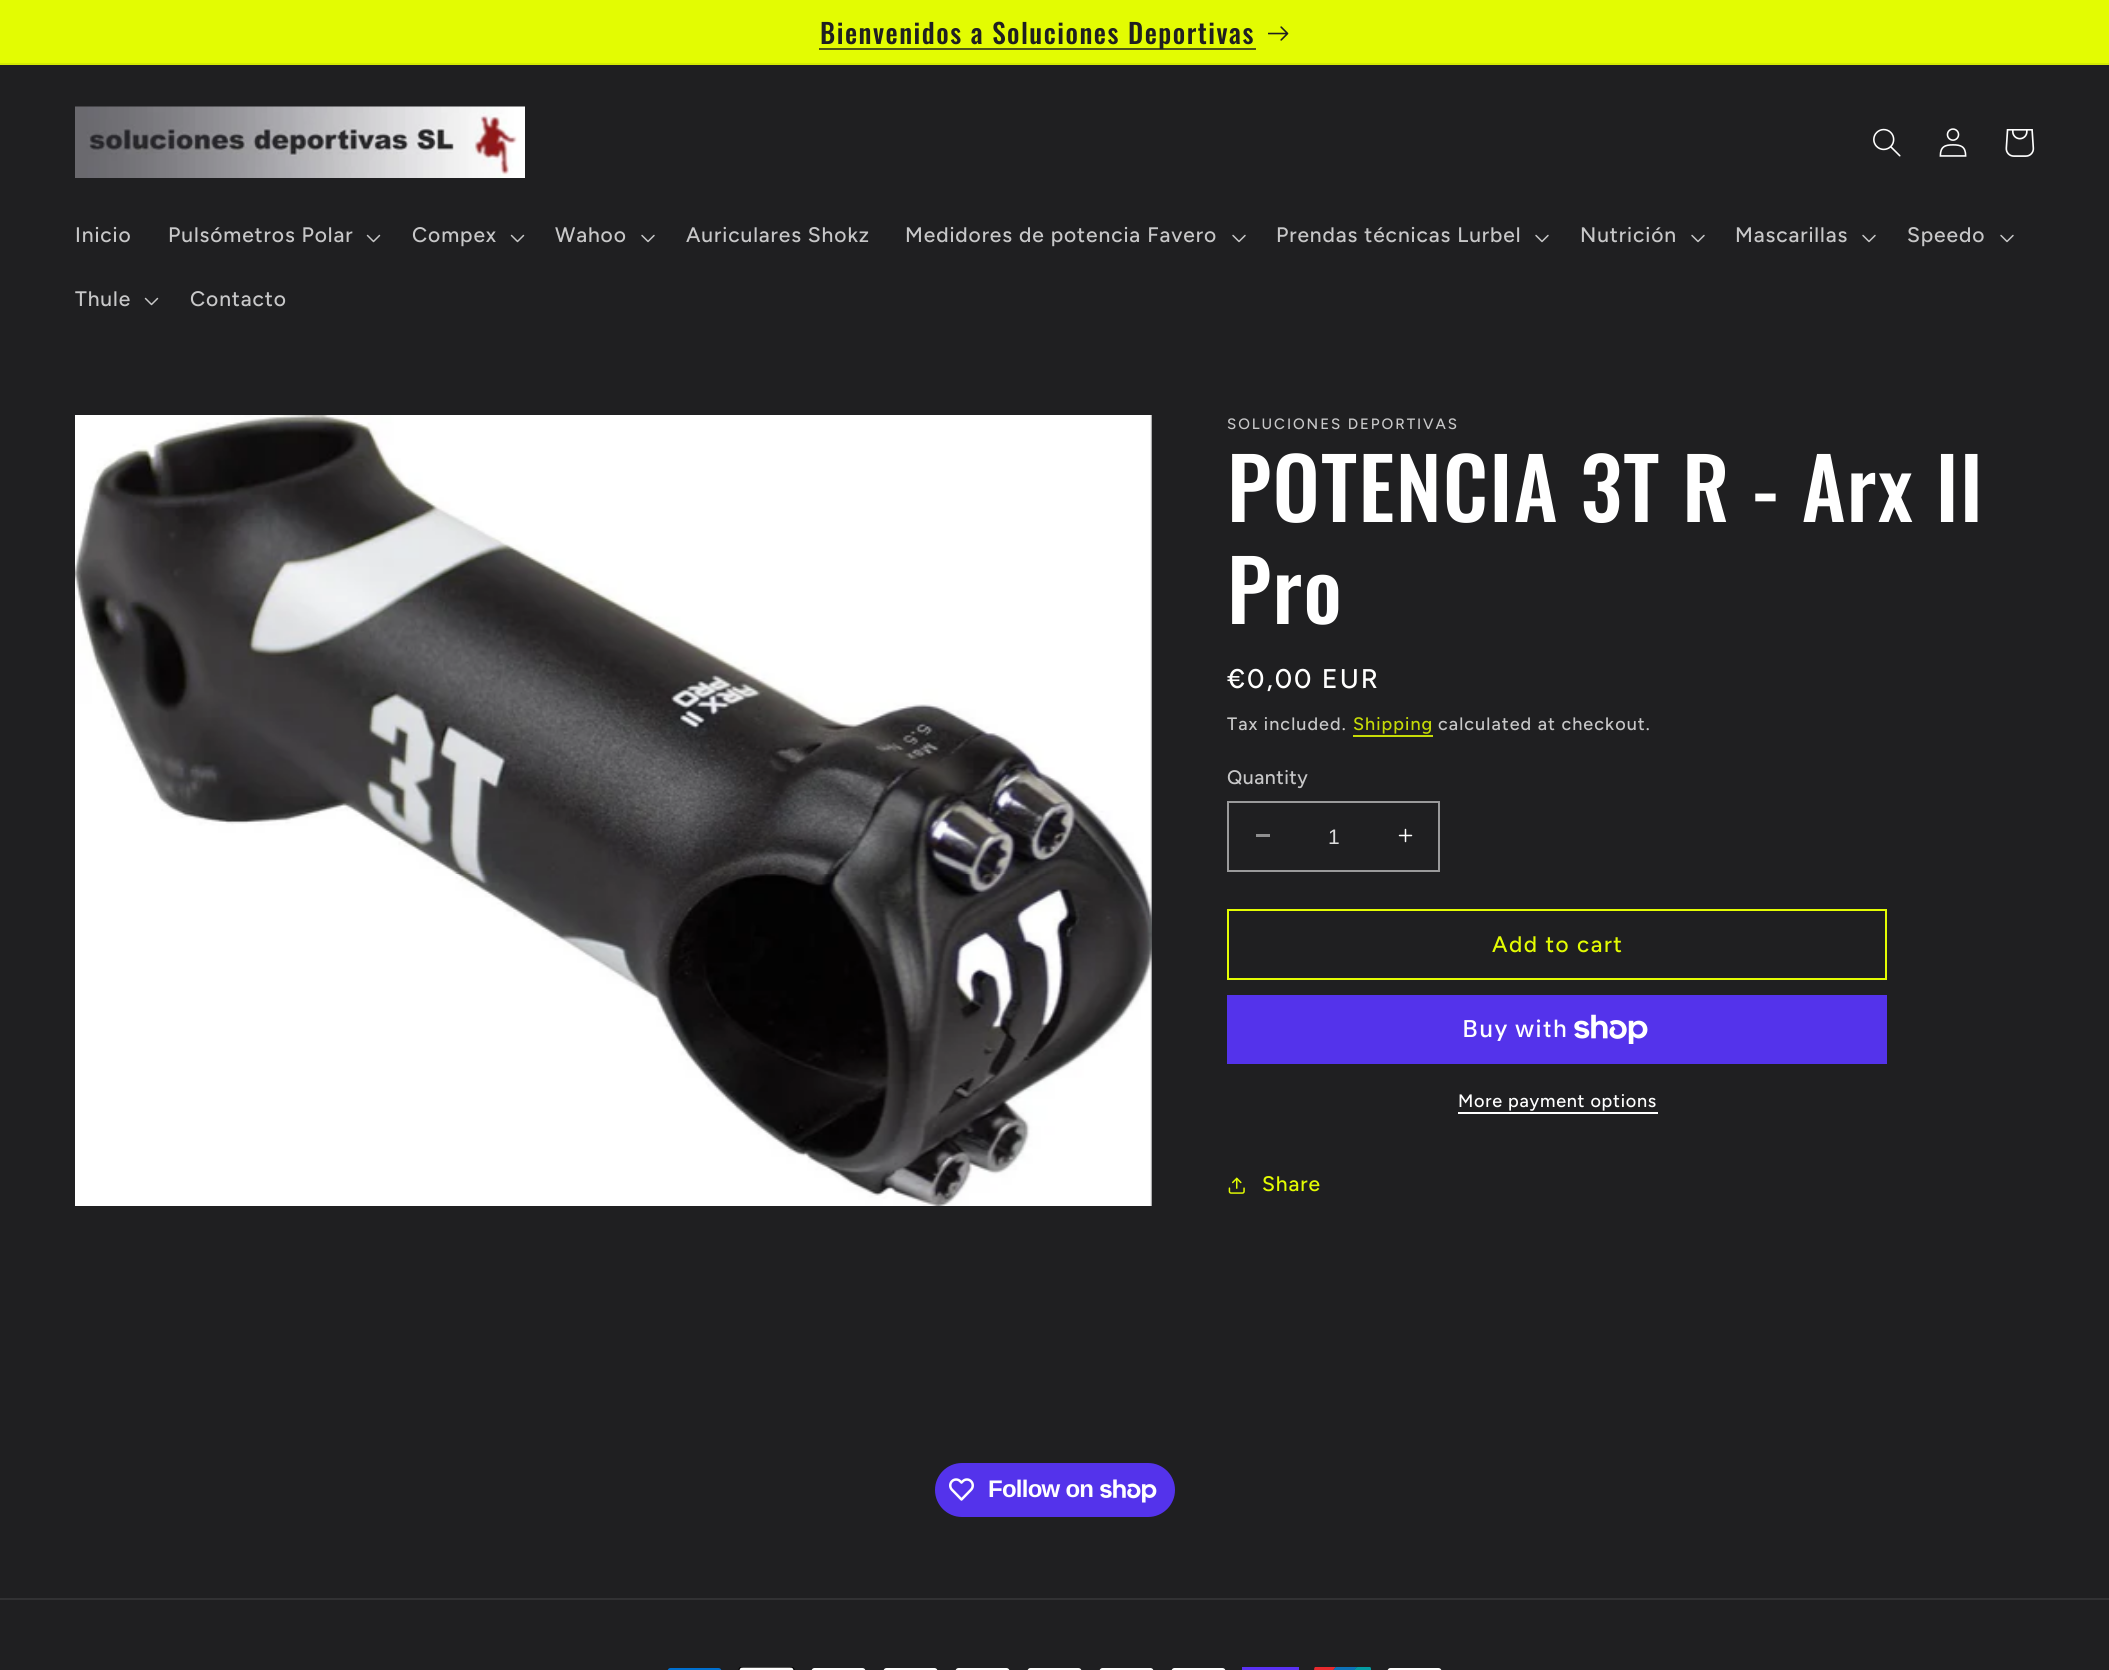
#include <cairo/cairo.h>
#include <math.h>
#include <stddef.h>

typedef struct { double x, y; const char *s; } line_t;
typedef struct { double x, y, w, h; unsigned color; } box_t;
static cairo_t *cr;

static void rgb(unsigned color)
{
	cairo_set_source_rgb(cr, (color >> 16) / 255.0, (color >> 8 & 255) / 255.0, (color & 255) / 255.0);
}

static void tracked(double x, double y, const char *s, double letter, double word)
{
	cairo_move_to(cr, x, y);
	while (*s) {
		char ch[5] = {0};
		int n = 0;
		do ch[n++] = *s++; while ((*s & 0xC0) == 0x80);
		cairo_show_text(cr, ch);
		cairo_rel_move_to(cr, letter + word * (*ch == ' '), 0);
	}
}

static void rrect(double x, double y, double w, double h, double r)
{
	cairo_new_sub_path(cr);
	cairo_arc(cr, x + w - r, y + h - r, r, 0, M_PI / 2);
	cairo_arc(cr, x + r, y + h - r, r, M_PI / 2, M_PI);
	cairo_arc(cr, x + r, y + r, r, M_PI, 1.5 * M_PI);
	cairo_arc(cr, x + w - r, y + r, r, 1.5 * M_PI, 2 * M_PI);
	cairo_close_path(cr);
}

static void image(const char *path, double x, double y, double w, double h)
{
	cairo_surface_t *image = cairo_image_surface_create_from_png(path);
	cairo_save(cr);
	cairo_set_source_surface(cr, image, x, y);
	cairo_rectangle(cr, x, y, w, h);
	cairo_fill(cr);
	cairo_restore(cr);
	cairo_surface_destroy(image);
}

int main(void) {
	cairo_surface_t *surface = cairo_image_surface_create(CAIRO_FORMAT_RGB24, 2109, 1670);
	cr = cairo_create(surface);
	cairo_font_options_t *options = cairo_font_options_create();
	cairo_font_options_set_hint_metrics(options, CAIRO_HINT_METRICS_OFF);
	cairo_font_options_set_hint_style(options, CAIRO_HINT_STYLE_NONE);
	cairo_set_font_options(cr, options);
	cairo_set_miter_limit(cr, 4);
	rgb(0x1f1f21);
	cairo_paint(cr);
	{
		static const box_t items[] = {
			{0, 0, 2109, 63, 0xe3fc02},
			{0, 63, 2109, 2, 0xd3ea04},
			{819, 48, 437, 2, 0x505619},
		};
		for (size_t i = 0; i < sizeof items / sizeof *items; i++) {
			rgb(items[i].color);
			cairo_rectangle(cr, items[i].x, items[i].y, items[i].w, items[i].h);
			cairo_fill(cr);
		}
	}
	image("img/1.png", 1268, 26, 21, 15);
	image("img/2.png", 75, 106, 450, 72);
	image("img/3.png", 1873, 128, 28, 29);
	image("img/4.png", 1939, 128, 28, 29);
	image("img/5.png", 2005, 129, 30, 28);
	image("img/6.png", 366, 234, 15, 9);
	image("img/6.png", 510, 234, 15, 9);
	image("img/7.png", 641, 234, 14, 9);
	image("img/7.png", 1232, 234, 14, 9);
	image("img/7.png", 1535, 234, 14, 9);
	image("img/7.png", 1691, 234, 14, 9);
	image("img/7.png", 1862, 234, 14, 9);
	image("img/7.png", 2000, 234, 14, 9);
	image("img/6.png", 144, 297, 15, 9);
	image("img/8.png", 75, 415, 1077, 791);
	rgb(0xc6db07);
	cairo_rectangle(cr, 1353, 735, 80, 2);
	cairo_fill(cr);
	rgb(0x8f8f90);
	cairo_rectangle(cr, 1256, 834, 14, 3);
	cairo_fill(cr);
	image("img/9.png", 1398, 828, 15, 15);
	cairo_rectangle(cr, 1228, 802, 211, 69);
	rgb(0x9a9a9b);
	cairo_stroke(cr);
	cairo_rectangle(cr, 1228, 910, 658, 69);
	rgb(0xe3fc02);
	cairo_stroke(cr);
	rgb(0x5433eb);
	cairo_rectangle(cr, 1227, 995, 660, 69);
	cairo_fill(cr);
	image("img/10.png", 1574, 1014, 74, 30);
	rgb(0xffffff);
	cairo_rectangle(cr, 1458, 1112, 200, 2);
	cairo_fill(cr);
	image("img/11.png", 1228, 1177, 17, 17);
	rgb(0x5433eb);
	rrect(935, 1463, 240, 54, 27);
	cairo_fill(cr);
	image("img/12.png", 949, 1478, 25, 23);
	image("img/13.png", 1100, 1479, 57, 24);
	rgb(0x313133);
	cairo_rectangle(cr, 0, 1598, 2109, 2);
	cairo_fill(cr);
	image("img/14.png", 667, 1668, 55, 2);
	image("img/15.png", 738, 1667, 57, 3);
	image("img/16.png", 811, 1668, 55, 2);
	image("img/16.png", 883, 1668, 55, 2);
	image("img/16.png", 955, 1668, 55, 2);
	image("img/16.png", 1027, 1668, 55, 2);
	image("img/16.png", 1099, 1668, 55, 2);
	image("img/16.png", 1171, 1668, 55, 2);
	rgb(0x5a31f4);
	cairo_rectangle(cr, 1242, 1667, 57, 3);
	cairo_fill(cr);
	image("img/17.png", 1314, 1667, 57, 3);
	image("img/16.png", 1387, 1668, 55, 2);
	cairo_select_font_face(cr, "Oswald Medium", CAIRO_FONT_SLANT_NORMAL, CAIRO_FONT_WEIGHT_NORMAL);
	cairo_set_font_size(cr, 27.25);
	rgb(0x1f1f21);
	tracked(820, 44, "Bienvenidos a Soluciones Deportivas", 1.5, 0);
	cairo_select_font_face(cr, "Figtree Medium", CAIRO_FONT_SLANT_NORMAL, CAIRO_FONT_WEIGHT_NORMAL);
	cairo_set_font_size(cr, 21);
	rgb(0xc7c7c8);
	{
		static const line_t items[] = {
			{75, 242, "Inicio"},
			{168, 242, "Pulsómetros Polar"},
			{412, 242, "Compex"},
			{555, 242, "Wahoo"},
			{686, 242, "Auriculares Shokz"},
			{905, 242, "Medidores de potencia Favero"},
			{1276, 242, "Prendas técnicas Lurbel"},
			{1580, 242, "Nutrición"},
			{1735, 242, "Mascarillas"},
			{1907, 242, "Speedo"},
			{75, 306, "Thule"},
			{190, 306, "Contacto"},
		};
		for (size_t i = 0; i < sizeof items / sizeof *items; i++) {
			tracked(items[i].x, items[i].y, items[i].s, 0.9, 0);
		}
	}
	cairo_set_font_size(cr, 15);
	tracked(1227, 429, "SOLUCIONES DEPORTIVAS", 1.95, 0);
	cairo_select_font_face(cr, "Oswald Medium", CAIRO_FONT_SLANT_NORMAL, CAIRO_FONT_WEIGHT_NORMAL);
	cairo_set_font_size(cr, 84);
	rgb(0xffffff);
	tracked(1227, 522, "POTENCIA 3T R - Arx II", 1.25, 0);
	tracked(1227, 624, "Pro", 1.25, 0);
	cairo_select_font_face(cr, "Figtree Medium", CAIRO_FONT_SLANT_NORMAL, CAIRO_FONT_WEIGHT_NORMAL);
	cairo_set_font_size(cr, 27);
	tracked(1227, 688, "€0,00 EUR", 1.95, 0);
	cairo_set_font_size(cr, 18);
	rgb(0xc7c7c8);
	tracked(1227, 730, "Tax included.", 1.05, 0);
	rgb(0xc6db07);
	tracked(1353, 730, "Shipping", 1.05, 0);
	rgb(0xc7c7c8);
	tracked(1438, 730, "calculated at checkout.", 1.05, 0);
	cairo_set_font_size(cr, 19.5);
	tracked(1227, 784, "Quantity", 0.5, 0);
	cairo_select_font_face(cr, "Liberation Sans", CAIRO_FONT_SLANT_NORMAL, CAIRO_FONT_WEIGHT_NORMAL);
	cairo_set_font_size(cr, 21);
	rgb(0xddddde);
	cairo_move_to(cr, 1328, 844);
	cairo_show_text(cr, "1");
	cairo_select_font_face(cr, "Figtree Medium", CAIRO_FONT_SLANT_NORMAL, CAIRO_FONT_WEIGHT_NORMAL);
	cairo_set_font_size(cr, 22.5);
	rgb(0xe3fc02);
	tracked(1492, 952, "Add to cart", 1.5, 0);
	cairo_select_font_face(cr, "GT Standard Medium", CAIRO_FONT_SLANT_NORMAL, CAIRO_FONT_WEIGHT_NORMAL);
	cairo_set_font_size(cr, 24);
	rgb(0xffffff);
	tracked(1462, 1037, "Buy with", 0.9, 0);
	cairo_select_font_face(cr, "Figtree Medium", CAIRO_FONT_SLANT_NORMAL, CAIRO_FONT_WEIGHT_NORMAL);
	cairo_set_font_size(cr, 18);
	tracked(1458, 1107, "More payment options", 0.75, 0);
	cairo_set_font_size(cr, 21);
	rgb(0xe3fc02);
	tracked(1262, 1191, "Share", 0.9, 0);
	cairo_select_font_face(cr, "Liberation Sans", CAIRO_FONT_SLANT_NORMAL, CAIRO_FONT_WEIGHT_BOLD);
	cairo_set_font_size(cr, 24);
	rgb(0xffffff);
	tracked(988, 1497, "Follow on", -0.75, 0);
	cairo_surface_write_to_png(surface, "page.png");
	cairo_font_options_destroy(options);
	cairo_destroy(cr);
	cairo_surface_destroy(surface);
	return 0;
}
